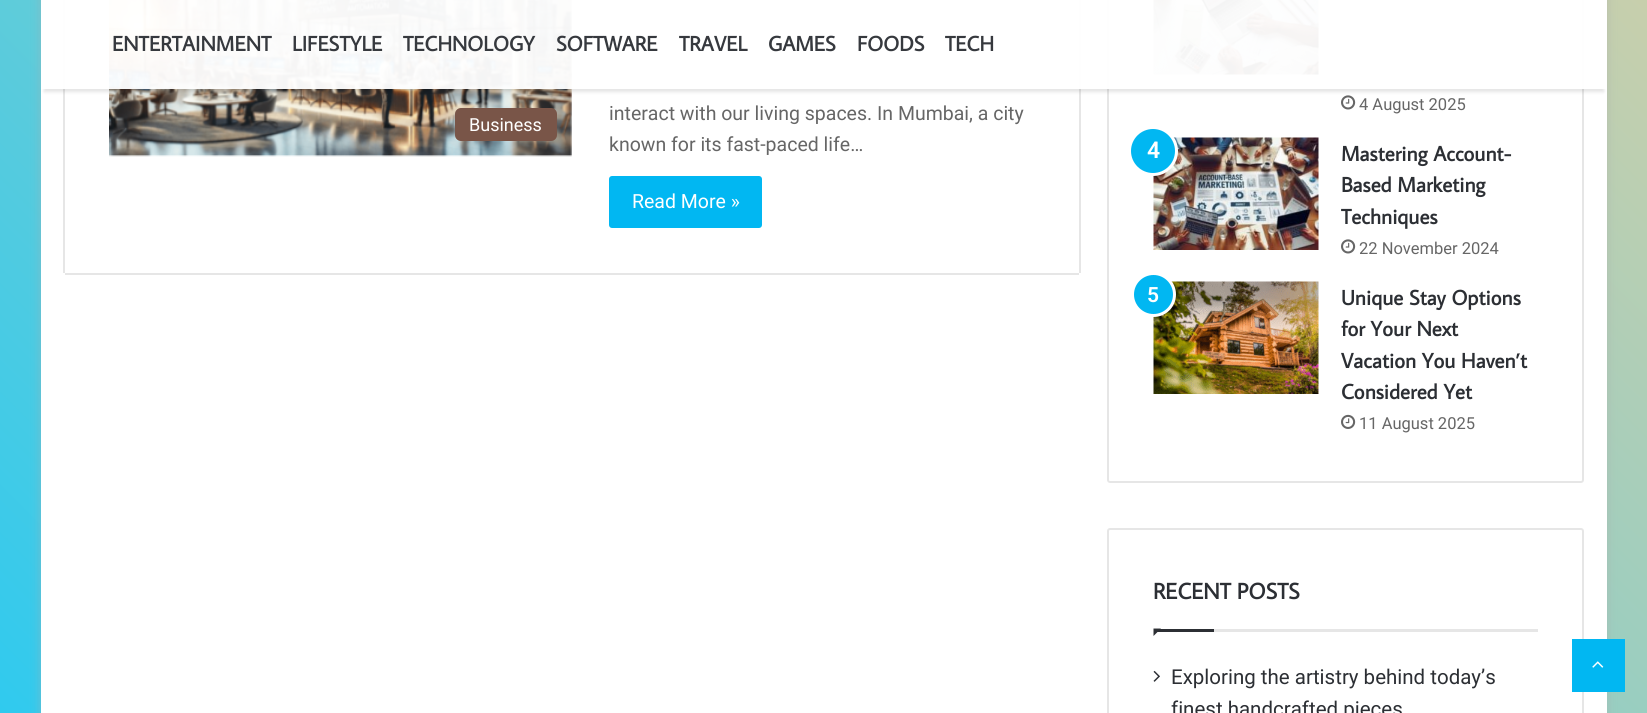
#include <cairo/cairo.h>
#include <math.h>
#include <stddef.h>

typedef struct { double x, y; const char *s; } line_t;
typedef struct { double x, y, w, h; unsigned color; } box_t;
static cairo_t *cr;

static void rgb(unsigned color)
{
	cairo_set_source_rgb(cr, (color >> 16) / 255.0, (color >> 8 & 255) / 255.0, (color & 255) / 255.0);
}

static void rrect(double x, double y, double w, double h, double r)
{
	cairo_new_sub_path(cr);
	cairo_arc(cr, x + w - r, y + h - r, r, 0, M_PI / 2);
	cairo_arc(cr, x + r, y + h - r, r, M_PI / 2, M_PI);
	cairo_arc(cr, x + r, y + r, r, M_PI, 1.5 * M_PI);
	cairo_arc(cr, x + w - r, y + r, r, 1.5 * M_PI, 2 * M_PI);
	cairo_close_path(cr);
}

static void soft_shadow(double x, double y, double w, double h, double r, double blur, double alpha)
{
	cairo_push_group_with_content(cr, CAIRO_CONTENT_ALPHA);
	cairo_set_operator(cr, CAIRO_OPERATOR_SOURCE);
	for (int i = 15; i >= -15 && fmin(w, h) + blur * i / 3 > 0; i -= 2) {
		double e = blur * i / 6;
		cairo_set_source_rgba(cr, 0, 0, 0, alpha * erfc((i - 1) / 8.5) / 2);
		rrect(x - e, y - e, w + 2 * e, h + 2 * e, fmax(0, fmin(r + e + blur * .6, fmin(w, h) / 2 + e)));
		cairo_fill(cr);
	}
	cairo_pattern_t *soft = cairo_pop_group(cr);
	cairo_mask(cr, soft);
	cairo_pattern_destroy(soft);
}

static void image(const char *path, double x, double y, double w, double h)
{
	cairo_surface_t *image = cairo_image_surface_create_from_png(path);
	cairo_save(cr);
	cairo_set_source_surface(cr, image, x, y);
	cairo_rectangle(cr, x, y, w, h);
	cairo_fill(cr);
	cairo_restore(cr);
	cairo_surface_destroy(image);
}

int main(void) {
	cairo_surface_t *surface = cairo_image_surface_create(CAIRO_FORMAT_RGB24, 1647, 713);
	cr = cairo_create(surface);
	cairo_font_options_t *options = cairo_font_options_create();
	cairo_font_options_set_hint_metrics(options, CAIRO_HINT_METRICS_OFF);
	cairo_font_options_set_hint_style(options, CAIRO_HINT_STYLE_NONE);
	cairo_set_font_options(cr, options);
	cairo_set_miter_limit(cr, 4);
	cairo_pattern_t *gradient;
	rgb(0xffffff);
	cairo_paint(cr);
	gradient = cairo_pattern_create_linear(-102, 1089, 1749, -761);
	cairo_pattern_add_color_stop_rgba(gradient, 0, 0.067, 0.788, 0.988, 1);
	cairo_pattern_add_color_stop_rgba(gradient, 1, 1, 0.82, 0.58, 1);
	cairo_set_source(cr, gradient);
	cairo_pattern_destroy(gradient);
	cairo_rectangle(cr, 0, 0, 1647, 713);
	cairo_fill(cr);
	rgb(0xababab);
	soft_shadow(41, -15, 1566, 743, 0, 5, 0.5);
	{
		static const box_t items[] = {
			{41, 0, 1566, 713, 0xffffff},
			{1079, 0, 2, 273, 0xe6e6e6},
			{63, 0, 2, 273, 0xe6e6e6},
		};
		for (size_t i = 0; i < sizeof items / sizeof *items; i++) {
			rgb(items[i].color);
			cairo_rectangle(cr, items[i].x, items[i].y, items[i].w, items[i].h);
			cairo_fill(cr);
		}
	}
	image("img/1.png", 109, 0, 463, 157);
	rrect(1108, -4, 475, 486, 2);
	cairo_stroke(cr);
	image("img/2.png", 1153, 0, 166, 75);
	image("img/3.png", 1341, 95, 15, 15);
	cairo_save(cr);
	cairo_set_fill_rule(cr, CAIRO_FILL_RULE_EVEN_ODD);
	cairo_new_path(cr);
	cairo_move_to(cr, 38, 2);
	cairo_line_to(cr, 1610, 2);
	cairo_line_to(cr, 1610, 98);
	cairo_line_to(cr, 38, 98);
	cairo_close_path(cr);
	cairo_move_to(cr, 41, -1);
	cairo_line_to(cr, 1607, -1);
	cairo_line_to(cr, 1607, 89);
	cairo_line_to(cr, 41, 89);
	cairo_close_path(cr);
	cairo_clip(cr);
	rgb(0x000000);
	soft_shadow(44, 8, 1560, 84, 0, 1.5, 0.1);
	cairo_restore(cr);
	cairo_set_source_rgba(cr, 1, 1, 1, 0.95);
	cairo_rectangle(cr, 43, 0, 1562, 89);
	cairo_fill(cr);
	rgb(0xe6e6e6);
	cairo_rectangle(cr, 65, 273, 1014, 2);
	cairo_fill(cr);
	rgb(0x795548);
	rrect(455, 108, 102, 33, 6);
	cairo_fill(cr);
	rgb(0x01b7f2);
	rrect(609, 176, 153, 52, 3);
	cairo_fill(cr);
	image("img/4.png", 1153, 137, 166, 113);
	cairo_arc(cr, 1153, 151, 23.5, 0, 2 * M_PI);
	cairo_fill_preserve(cr);
	rgb(0xffffff);
	cairo_set_line_width(cr, 3);
	cairo_stroke(cr);
	image("img/3.png", 1341, 239, 15, 15);
	image("img/5.png", 1153, 281, 166, 113);
	rgb(0x01b7f2);
	cairo_arc(cr, 1153.5, 294.5, 21, 0, 2 * M_PI);
	cairo_fill_preserve(cr);
	rgb(0xffffff);
	cairo_stroke(cr);
	image("img/6.png", 1341, 414, 15, 15);
	rrect(1108, 529, 475, 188, 2);
	rgb(0xe6e6e6);
	cairo_set_line_width(cr, 2);
	cairo_stroke(cr);
	cairo_rectangle(cr, 1214, 629, 324, 3);
	cairo_fill(cr);
	rgb(0x2c2f34);
	cairo_new_path(cr);
	cairo_move_to(cr, 1153.5, 628.5);
	cairo_line_to(cr, 1161, 628.5);
	cairo_line_to(cr, 1153.5, 636);
	cairo_close_path(cr);
	cairo_fill(cr);
	cairo_rectangle(cr, 1154, 629, 60, 3);
	cairo_fill(cr);
	image("img/7.png", 1153, 670, 7, 12);
	rgb(0x01b7f2);
	cairo_rectangle(cr, 1572, 639, 53, 53);
	cairo_fill(cr);
	image("img/8.png", 1592, 661, 12, 7);
	cairo_select_font_face(cr, "Average Sans", CAIRO_FONT_SLANT_NORMAL, CAIRO_FONT_WEIGHT_BOLD);
	cairo_set_font_size(cr, 21);
	rgb(0x36393e);
	{
		static const line_t items[] = {
			{112, 51, "ENTERTAINMENT"},
			{292, 51, "LIFESTYLE"},
			{403, 51, "TECHNOLOGY"},
			{556, 51, "SOFTWARE"},
			{679, 51, "TRAVEL"},
			{768, 51, "GAMES"},
			{857, 51, "FOODS"},
			{945, 51, "TECH"},
		};
		for (size_t i = 0; i < sizeof items / sizeof *items; i++) {
			cairo_move_to(cr, items[i].x, items[i].y);
			cairo_show_text(cr, items[i].s);
		}
	}
	cairo_select_font_face(cr, "Roboto", CAIRO_FONT_SLANT_NORMAL, CAIRO_FONT_WEIGHT_NORMAL);
	cairo_set_font_size(cr, 18);
	rgb(0xffffff);
	cairo_move_to(cr, 469, 131);
	cairo_show_text(cr, "Business");
	cairo_set_font_size(cr, 19.5);
	rgb(0x666666);
	cairo_move_to(cr, 609, 120);
	cairo_show_text(cr, "interact with our living spaces. In Mumbai, a city");
	cairo_move_to(cr, 609, 151);
	cairo_show_text(cr, "known for its fast-paced life…");
	rgb(0xffffff);
	cairo_move_to(cr, 632, 208);
	cairo_show_text(cr, "Read More »");
	cairo_set_font_size(cr, 16.5);
	rgb(0x666666);
	cairo_move_to(cr, 1359, 110);
	cairo_show_text(cr, "4 August 2025");
	cairo_select_font_face(cr, "Roboto SemiBold", CAIRO_FONT_SLANT_NORMAL, CAIRO_FONT_WEIGHT_NORMAL);
	cairo_set_font_size(cr, 23);
	rgb(0xffffff);
	cairo_move_to(cr, 1147, 158);
	cairo_show_text(cr, "4");
	cairo_select_font_face(cr, "Average Sans", CAIRO_FONT_SLANT_NORMAL, CAIRO_FONT_WEIGHT_BOLD);
	cairo_set_font_size(cr, 21);
	rgb(0x2c2f34);
	{
		static const line_t items[] = {
			{1341, 161, "Mastering Account-"},
			{1341, 192, "Based Marketing"},
			{1341, 224, "Techniques"},
		};
		for (size_t i = 0; i < sizeof items / sizeof *items; i++) {
			cairo_move_to(cr, items[i].x, items[i].y);
			cairo_show_text(cr, items[i].s);
		}
	}
	cairo_select_font_face(cr, "Roboto", CAIRO_FONT_SLANT_NORMAL, CAIRO_FONT_WEIGHT_NORMAL);
	cairo_set_font_size(cr, 16.5);
	rgb(0x666666);
	cairo_move_to(cr, 1359, 254);
	cairo_show_text(cr, "22 November 2024");
	cairo_select_font_face(cr, "Roboto SemiBold", CAIRO_FONT_SLANT_NORMAL, CAIRO_FONT_WEIGHT_NORMAL);
	cairo_set_font_size(cr, 21);
	rgb(0xffffff);
	cairo_move_to(cr, 1147, 302);
	cairo_show_text(cr, "5");
	cairo_select_font_face(cr, "Average Sans", CAIRO_FONT_SLANT_NORMAL, CAIRO_FONT_WEIGHT_BOLD);
	rgb(0x2c2f34);
	{
		static const line_t items[] = {
			{1341, 305, "Unique Stay Options"},
			{1341, 336, "for Your Next"},
			{1341, 368, "Vacation You Haven’t"},
			{1341, 399, "Considered Yet"},
		};
		for (size_t i = 0; i < sizeof items / sizeof *items; i++) {
			cairo_move_to(cr, items[i].x, items[i].y);
			cairo_show_text(cr, items[i].s);
		}
	}
	cairo_select_font_face(cr, "Roboto", CAIRO_FONT_SLANT_NORMAL, CAIRO_FONT_WEIGHT_NORMAL);
	cairo_set_font_size(cr, 16.5);
	rgb(0x666666);
	cairo_move_to(cr, 1359, 429);
	cairo_show_text(cr, "11 August 2025");
	cairo_select_font_face(cr, "Average Sans", CAIRO_FONT_SLANT_NORMAL, CAIRO_FONT_WEIGHT_BOLD);
	cairo_set_font_size(cr, 22.5);
	rgb(0x2c2f34);
	cairo_move_to(cr, 1153, 599);
	cairo_show_text(cr, "RECENT POSTS");
	cairo_select_font_face(cr, "Roboto", CAIRO_FONT_SLANT_NORMAL, CAIRO_FONT_WEIGHT_NORMAL);
	cairo_set_font_size(cr, 20.5);
	cairo_move_to(cr, 1171, 684);
	cairo_show_text(cr, "Exploring the artistry behind today’s");
	cairo_move_to(cr, 1171, 716);
	cairo_show_text(cr, "finest handcrafted pieces");
	cairo_surface_write_to_png(surface, "page.png");
	cairo_font_options_destroy(options);
	cairo_destroy(cr);
	cairo_surface_destroy(surface);
	return 0;
}
